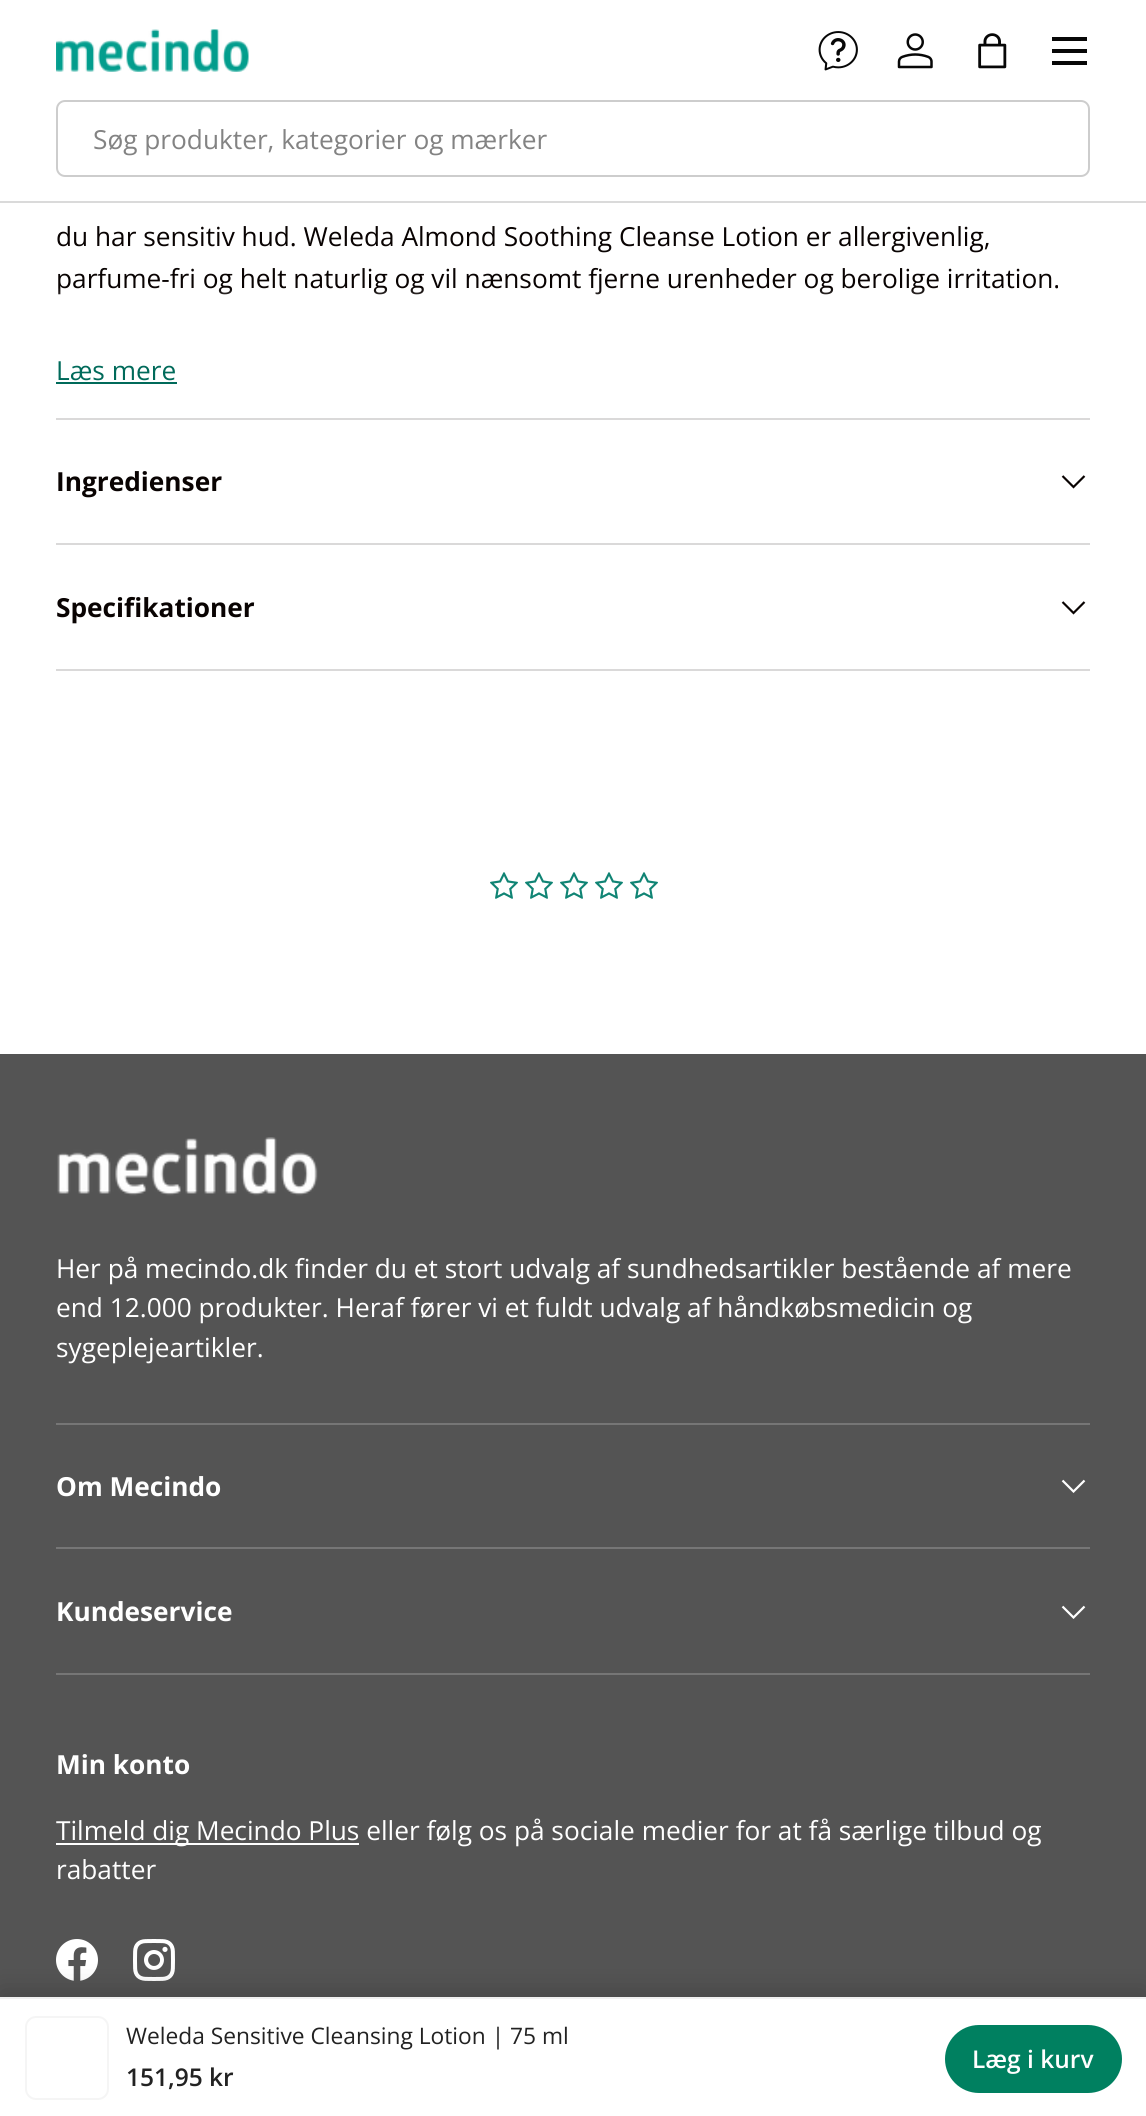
#include <cairo/cairo.h>
#include <math.h>
#include <stddef.h>

typedef struct { double x, y; const char *s; } line_t;
typedef struct { double x, y, w, h; unsigned color; } box_t;
static cairo_t *cr;

static void rgb(unsigned color)
{
	cairo_set_source_rgb(cr, (color >> 16) / 255.0, (color >> 8 & 255) / 255.0, (color & 255) / 255.0);
}

static void rrect(double x, double y, double w, double h, double r)
{
	cairo_new_sub_path(cr);
	cairo_arc(cr, x + w - r, y + h - r, r, 0, M_PI / 2);
	cairo_arc(cr, x + r, y + h - r, r, M_PI / 2, M_PI);
	cairo_arc(cr, x + r, y + r, r, M_PI, 1.5 * M_PI);
	cairo_arc(cr, x + w - r, y + r, r, 1.5 * M_PI, 2 * M_PI);
	cairo_close_path(cr);
}

static void soft_shadow(double x, double y, double w, double h, double r, double blur, double alpha)
{
	cairo_push_group_with_content(cr, CAIRO_CONTENT_ALPHA);
	cairo_set_operator(cr, CAIRO_OPERATOR_SOURCE);
	for (int i = 15; i >= -15 && fmin(w, h) + blur * i / 3 > 0; i -= 2) {
		double e = blur * i / 6;
		cairo_set_source_rgba(cr, 0, 0, 0, alpha * erfc((i - 1) / 8.5) / 2);
		rrect(x - e, y - e, w + 2 * e, h + 2 * e, fmax(0, fmin(r + e + blur * .6, fmin(w, h) / 2 + e)));
		cairo_fill(cr);
	}
	cairo_pattern_t *soft = cairo_pop_group(cr);
	cairo_mask(cr, soft);
	cairo_pattern_destroy(soft);
}

static void image(const char *path, double x, double y, double w, double h)
{
	cairo_surface_t *image = cairo_image_surface_create_from_png(path);
	cairo_save(cr);
	cairo_set_source_surface(cr, image, x, y);
	cairo_rectangle(cr, x, y, w, h);
	cairo_fill(cr);
	cairo_restore(cr);
	cairo_surface_destroy(image);
}

int main(void) {
	cairo_surface_t *surface = cairo_image_surface_create(CAIRO_FORMAT_RGB24, 1146, 2116);
	cr = cairo_create(surface);
	cairo_font_options_t *options = cairo_font_options_create();
	cairo_font_options_set_hint_metrics(options, CAIRO_HINT_METRICS_OFF);
	cairo_font_options_set_hint_style(options, CAIRO_HINT_STYLE_NONE);
	cairo_set_font_options(cr, options);
	cairo_set_miter_limit(cr, 4);
	cairo_pattern_t *gradient;
	rgb(0xffffff);
	cairo_paint(cr);
	rgb(0xdadada);
	cairo_rectangle(cr, 0, 201, 1146, 2);
	cairo_fill(cr);
	image("img/1.png", 56, 29, 193, 43);
	image("img/2.png", 818, 31, 40, 40);
	image("img/3.png", 897, 33, 36, 36);
	image("img/4.png", 978, 33, 29, 36);
	{
		static const box_t items[] = {
			{1052, 37, 35, 4, 0x070707},
			{1052, 61, 35, 4, 0x070707},
			{1052, 49, 35, 4, 0x070707},
		};
		for (size_t i = 0; i < sizeof items / sizeof *items; i++) {
			rgb(items[i].color);
			cairo_rectangle(cr, items[i].x, items[i].y, items[i].w, items[i].h);
			cairo_fill(cr);
		}
	}
	rrect(57, 101, 1032, 75, 8);
	rgb(0xcdcdcd);
	cairo_stroke(cr);
	{
		static const box_t items[] = {
			{56, 382, 121, 2, 0x006a5a},
			{56, 418, 1034, 2, 0xdad9d9},
			{56, 543, 1034, 2, 0xdad9d9},
		};
		for (size_t i = 0; i < sizeof items / sizeof *items; i++) {
			rgb(items[i].color);
			cairo_rectangle(cr, items[i].x, items[i].y, items[i].w, items[i].h);
			cairo_fill(cr);
		}
	}
	cairo_new_path(cr);
	cairo_move_to(cr, 1084.5, 476);
	cairo_line_to(cr, 1073.5, 487);
	cairo_line_to(cr, 1062.5, 476);
	rgb(0x090302);
	cairo_set_line_width(cr, 2.2);
	cairo_stroke(cr);
	rgb(0xdad9d9);
	cairo_rectangle(cr, 56, 669, 1034, 2);
	cairo_fill(cr);
	cairo_new_path(cr);
	cairo_move_to(cr, 1084.5, 602);
	cairo_line_to(cr, 1073.5, 613);
	cairo_line_to(cr, 1062.5, 602);
	rgb(0x090302);
	cairo_stroke(cr);
	image("img/5.png", 490, 872, 28, 27);
	image("img/5.png", 525, 872, 28, 27);
	image("img/5.png", 560, 872, 28, 27);
	image("img/5.png", 595, 872, 28, 27);
	image("img/5.png", 630, 872, 28, 27);
	rgb(0x545454);
	cairo_rectangle(cr, 0, 1054, 1146, 943);
	cairo_fill(cr);
	image("img/6.png", 57, 1137, 261, 59);
	rgb(0x767676);
	cairo_rectangle(cr, 56, 1423, 1034, 2);
	cairo_fill(cr);
	cairo_rectangle(cr, 56, 1547, 1034, 2);
	cairo_fill(cr);
	cairo_new_path(cr);
	cairo_move_to(cr, 1084.5, 1480.5);
	cairo_line_to(cr, 1073.5, 1491.5);
	cairo_line_to(cr, 1062.5, 1480.5);
	rgb(0xffffff);
	cairo_stroke(cr);
	rgb(0x767676);
	cairo_rectangle(cr, 56, 1673, 1034, 2);
	cairo_fill(cr);
	cairo_new_path(cr);
	cairo_move_to(cr, 1084.5, 1606.5);
	cairo_line_to(cr, 1073.5, 1617.5);
	cairo_line_to(cr, 1062.5, 1606.5);
	rgb(0xffffff);
	cairo_stroke(cr);
	cairo_rectangle(cr, 56, 1843, 303, 2);
	cairo_fill(cr);
	image("img/7.png", 56, 1939, 42, 42);
	image("img/8.png", 133, 1939, 42, 42);
	rgb(0x000000);
	soft_shadow(0, 1990, 1146, 121, 0, 14, 0.16);
	rgb(0xffffff);
	cairo_rectangle(cr, 0, 1999, 1146, 117);
	cairo_fill(cr);
	rgb(0xf0f0f0);
	cairo_rectangle(cr, 0, 1997, 1146, 2);
	cairo_fill(cr);
	rrect(26, 2017, 82, 82, 10);
	rgb(0xf5f5f5);
	cairo_set_line_width(cr, 2);
	cairo_stroke(cr);
	rgb(0x008060);
	rrect(945, 2025, 177, 68, 34);
	cairo_fill(cr);
	cairo_select_font_face(cr, "Open Sans", CAIRO_FONT_SLANT_NORMAL, CAIRO_FONT_WEIGHT_NORMAL);
	cairo_set_font_size(cr, 26.25);
	rgb(0x838383);
	cairo_move_to(cr, 93, 149);
	cairo_show_text(cr, "Søg produkter, kategorier og mærker");
	rgb(0x090302);
	cairo_move_to(cr, 56, 246);
	cairo_show_text(cr, "du har sensitiv hud. Weleda Almond Soothing Cleanse Lotion er allergivenlig,");
	cairo_move_to(cr, 56, 288);
	cairo_show_text(cr, "parfume-fri og helt naturlig og vil nænsomt fjerne urenheder og berolige irritation.");
	gradient = cairo_pattern_create_linear(573, 287, 573, 340);
	cairo_pattern_add_color_stop_rgba(gradient, 0, 1, 1, 1, 0);
	cairo_pattern_add_color_stop_rgba(gradient, 1, 1, 1, 1, 1);
	cairo_set_source(cr, gradient);
	cairo_pattern_destroy(gradient);
	cairo_rectangle(cr, 58, 288, 867, 7);
	cairo_fill(cr);
	rgb(0x006a5a);
	cairo_move_to(cr, 56, 380);
	cairo_show_text(cr, "Læs mere");
	cairo_select_font_face(cr, "Open Sans", CAIRO_FONT_SLANT_NORMAL, CAIRO_FONT_WEIGHT_BOLD);
	rgb(0x090302);
	cairo_move_to(cr, 56, 491);
	cairo_show_text(cr, "Ingredienser");
	cairo_move_to(cr, 56, 617);
	cairo_show_text(cr, "Specifikationer");
	cairo_select_font_face(cr, "Open Sans", CAIRO_FONT_SLANT_NORMAL, CAIRO_FONT_WEIGHT_NORMAL);
	rgb(0xffffff);
	{
		static const line_t items[] = {
			{56, 1278, "Her på mecindo.dk finder du et stort udvalg af sundhedsartikler bestående af mere"},
			{56, 1317, "end 12.000 produkter. Heraf fører vi et fuldt udvalg af håndkøbsmedicin og"},
			{56, 1357, "sygeplejeartikler."},
		};
		for (size_t i = 0; i < sizeof items / sizeof *items; i++) {
			cairo_move_to(cr, items[i].x, items[i].y);
			cairo_show_text(cr, items[i].s);
		}
	}
	cairo_select_font_face(cr, "Open Sans", CAIRO_FONT_SLANT_NORMAL, CAIRO_FONT_WEIGHT_BOLD);
	{
		static const line_t items[] = {
			{56, 1496, "Om Mecindo"},
			{56, 1621, "Kundeservice"},
			{56, 1774, "Min konto"},
		};
		for (size_t i = 0; i < sizeof items / sizeof *items; i++) {
			cairo_move_to(cr, items[i].x, items[i].y);
			cairo_show_text(cr, items[i].s);
		}
	}
	cairo_select_font_face(cr, "Open Sans", CAIRO_FONT_SLANT_NORMAL, CAIRO_FONT_WEIGHT_NORMAL);
	cairo_move_to(cr, 56, 1840);
	cairo_show_text(cr, "Tilmeld dig Mecindo Plus eller følg os på sociale medier for at få særlige tilbud og");
	cairo_move_to(cr, 56, 1879);
	cairo_show_text(cr, "rabatter");
	cairo_set_font_size(cr, 22.75);
	rgb(0x222222);
	cairo_move_to(cr, 126, 2044);
	cairo_show_text(cr, "Weleda Sensitive Cleansing Lotion | 75 ml");
	cairo_select_font_face(cr, "Open Sans SemiBold", CAIRO_FONT_SLANT_NORMAL, CAIRO_FONT_WEIGHT_NORMAL);
	cairo_set_font_size(cr, 24.5);
	cairo_move_to(cr, 126, 2086);
	cairo_show_text(cr, "151,95 kr");
	rgb(0xffffff);
	cairo_move_to(cr, 972, 2068);
	cairo_show_text(cr, "Læg i kurv");
	cairo_surface_write_to_png(surface, "page.png");
	cairo_font_options_destroy(options);
	cairo_destroy(cr);
	cairo_surface_destroy(surface);
	return 0;
}
